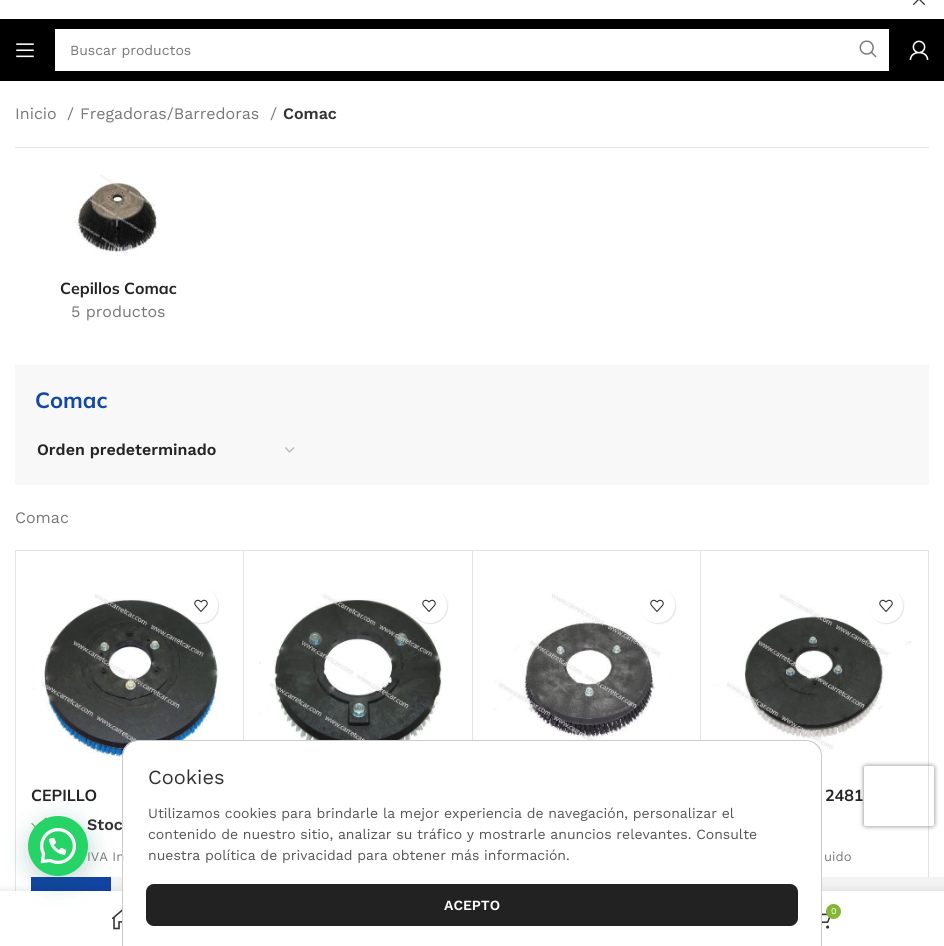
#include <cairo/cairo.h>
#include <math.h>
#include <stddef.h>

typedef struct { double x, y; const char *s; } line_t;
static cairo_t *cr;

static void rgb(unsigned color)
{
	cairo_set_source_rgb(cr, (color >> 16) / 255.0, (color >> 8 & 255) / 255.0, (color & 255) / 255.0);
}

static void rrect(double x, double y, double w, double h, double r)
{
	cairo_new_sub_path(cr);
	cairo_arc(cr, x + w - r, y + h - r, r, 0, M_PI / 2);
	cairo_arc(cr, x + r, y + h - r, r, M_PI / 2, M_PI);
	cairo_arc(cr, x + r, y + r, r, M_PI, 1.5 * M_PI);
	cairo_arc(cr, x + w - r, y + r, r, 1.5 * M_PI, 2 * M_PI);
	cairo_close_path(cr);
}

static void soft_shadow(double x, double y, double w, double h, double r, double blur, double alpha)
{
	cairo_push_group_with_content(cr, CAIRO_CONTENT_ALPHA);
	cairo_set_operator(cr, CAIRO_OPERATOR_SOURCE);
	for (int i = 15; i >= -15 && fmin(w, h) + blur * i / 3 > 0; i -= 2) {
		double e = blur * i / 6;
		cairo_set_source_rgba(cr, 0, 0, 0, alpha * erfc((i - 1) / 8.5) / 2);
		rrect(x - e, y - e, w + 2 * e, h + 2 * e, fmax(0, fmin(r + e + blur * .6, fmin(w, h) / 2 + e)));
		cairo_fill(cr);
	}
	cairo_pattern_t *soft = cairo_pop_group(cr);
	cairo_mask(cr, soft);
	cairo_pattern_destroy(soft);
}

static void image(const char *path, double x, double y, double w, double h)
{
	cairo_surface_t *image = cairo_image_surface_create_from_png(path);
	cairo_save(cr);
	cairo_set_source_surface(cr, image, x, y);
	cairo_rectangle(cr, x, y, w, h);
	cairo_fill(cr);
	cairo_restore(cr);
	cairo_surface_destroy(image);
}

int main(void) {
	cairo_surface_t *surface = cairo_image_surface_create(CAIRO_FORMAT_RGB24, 944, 946);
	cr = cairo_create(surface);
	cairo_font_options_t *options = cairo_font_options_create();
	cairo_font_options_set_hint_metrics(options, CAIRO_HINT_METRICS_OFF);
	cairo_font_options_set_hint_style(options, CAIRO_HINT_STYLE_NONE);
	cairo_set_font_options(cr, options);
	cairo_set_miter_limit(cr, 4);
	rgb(0xffffff);
	cairo_paint(cr);
	image("img/1.png", 912, 0, 14, 6);
	rgb(0x000000);
	cairo_rectangle(cr, 0, 19, 944, 62);
	cairo_fill(cr);
	image("img/2.png", 16, 43, 18, 15);
	rgb(0xffffff);
	cairo_rectangle(cr, 55, 29, 834, 42);
	cairo_fill(cr);
	image("img/3.png", 859, 40, 18, 18);
	image("img/4.png", 909, 40, 20, 20);
	rgb(0xe4e4e4);
	cairo_rectangle(cr, 15, 147, 914, 1);
	cairo_fill(cr);
	image("img/5.png", 73, 175, 85, 80);
	rgb(0xf8f8f8);
	cairo_rectangle(cr, 15, 365, 914, 120);
	cairo_fill(cr);
	cairo_new_path(cr);
	cairo_move_to(cr, 285.5, 447.5);
	cairo_line_to(cr, 289.5, 452);
	cairo_line_to(cr, 294, 447.5);
	rgb(0xbbbbbb);
	cairo_set_line_width(cr, 1.4);
	cairo_stroke(cr);
	rgb(0xe4e4e4);
	cairo_rectangle(cr, 15, 550, 1, 341);
	cairo_fill(cr);
	cairo_new_path(cr);
	cairo_move_to(cr, 16, 550);
	cairo_line_to(cr, 244, 550);
	cairo_line_to(cr, 243, 551);
	cairo_line_to(cr, 16, 551);
	cairo_close_path(cr);
	cairo_fill(cr);
	cairo_set_source_rgba(cr, 0, 0, 0, 0.11);
	cairo_new_path(cr);
	cairo_move_to(cr, 244, 550);
	cairo_line_to(cr, 244, 935);
	cairo_line_to(cr, 243, 934);
	cairo_line_to(cr, 243, 551);
	cairo_close_path(cr);
	cairo_fill(cr);
	image("img/7.png", 33, 594, 187, 166);
	rgb(0x000000);
	soft_shadow(184, 589, 35, 35, 17.5, 0.5, 0.1);
	rgb(0xffffff);
	cairo_arc(cr, 200.5, 605.5, 17.5, 0, 2 * M_PI);
	cairo_fill(cr);
	image("img/6.png", 194, 599, 14, 13);
	image("img/8.png", 31, 817, 16, 11);
	rgb(0x1143a2);
	cairo_rectangle(cr, 31, 877, 80, 14);
	cairo_fill(cr);
	rgb(0xf3f3f3);
	cairo_rectangle(cr, 111, 877, 11, 14);
	cairo_fill(cr);
	rgb(0xe4e4e4);
	cairo_new_path(cr);
	cairo_move_to(cr, 244, 550);
	cairo_line_to(cr, 473, 550);
	cairo_line_to(cr, 472, 551);
	cairo_line_to(cr, 244, 551);
	cairo_close_path(cr);
	cairo_fill(cr);
	cairo_set_source_rgba(cr, 0, 0, 0, 0.11);
	cairo_new_path(cr);
	cairo_move_to(cr, 473, 550);
	cairo_line_to(cr, 473, 935);
	cairo_line_to(cr, 472, 934);
	cairo_line_to(cr, 472, 551);
	cairo_close_path(cr);
	cairo_fill(cr);
	image("img/9.png", 259, 594, 183, 146);
	rgb(0x000000);
	soft_shadow(413, 589, 35, 35, 17.5, 0.5, 0.1);
	rgb(0xffffff);
	cairo_arc(cr, 429.5, 605.5, 17.5, 0, 2 * M_PI);
	cairo_fill(cr);
	image("img/6.png", 422, 599, 14, 13);
	rgb(0xe4e4e4);
	cairo_new_path(cr);
	cairo_move_to(cr, 473, 550);
	cairo_line_to(cr, 701, 550);
	cairo_line_to(cr, 700, 551);
	cairo_line_to(cr, 473, 551);
	cairo_close_path(cr);
	cairo_fill(cr);
	cairo_set_source_rgba(cr, 0, 0, 0, 0.11);
	cairo_new_path(cr);
	cairo_move_to(cr, 701, 550);
	cairo_line_to(cr, 701, 935);
	cairo_line_to(cr, 700, 934);
	cairo_line_to(cr, 700, 551);
	cairo_close_path(cr);
	cairo_fill(cr);
	image("img/10.png", 494, 594, 177, 146);
	rgb(0x000000);
	soft_shadow(641, 589, 35, 35, 17.5, 0.5, 0.1);
	rgb(0xffffff);
	cairo_arc(cr, 657.5, 605.5, 17.5, 0, 2 * M_PI);
	cairo_fill(cr);
	image("img/6.png", 650, 599, 14, 13);
	rgb(0xe4e4e4);
	cairo_new_path(cr);
	cairo_move_to(cr, 701, 550);
	cairo_line_to(cr, 929, 550);
	cairo_line_to(cr, 928, 551);
	cairo_line_to(cr, 701, 551);
	cairo_close_path(cr);
	cairo_fill(cr);
	cairo_set_source_rgba(cr, 0, 0, 0, 0.11);
	cairo_new_path(cr);
	cairo_move_to(cr, 929, 550);
	cairo_line_to(cr, 929, 935);
	cairo_line_to(cr, 928, 934);
	cairo_line_to(cr, 928, 551);
	cairo_close_path(cr);
	cairo_fill(cr);
	image("img/11.png", 716, 594, 196, 156);
	rgb(0x000000);
	soft_shadow(869, 589, 35, 35, 17.5, 0.5, 0.1);
	rgb(0xffffff);
	cairo_arc(cr, 885.5, 605.5, 17.5, 0, 2 * M_PI);
	cairo_fill(cr);
	image("img/6.png", 879, 599, 14, 13);
	rgb(0xf3f3f3);
	cairo_rectangle(cr, 822, 877, 122, 14);
	cairo_fill(cr);
	cairo_save(cr);
	cairo_set_fill_rule(cr, CAIRO_FILL_RULE_EVEN_ODD);
	cairo_new_path(cr);
	cairo_move_to(cr, 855, 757);
	cairo_line_to(cr, 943, 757);
	cairo_line_to(cr, 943, 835);
	cairo_line_to(cr, 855, 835);
	cairo_close_path(cr);
	cairo_move_to(cr, 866, 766);
	cairo_line_to(cr, 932, 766);
	cairo_curve_to(cr, 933, 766, 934, 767, 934, 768);
	cairo_line_to(cr, 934, 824);
	cairo_curve_to(cr, 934, 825, 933, 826, 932, 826);
	cairo_line_to(cr, 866, 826);
	cairo_curve_to(cr, 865, 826, 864, 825, 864, 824);
	cairo_line_to(cr, 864, 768);
	cairo_curve_to(cr, 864, 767, 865, 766, 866, 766);
	cairo_close_path(cr);
	cairo_clip(cr);
	rgb(0x808080);
	soft_shadow(864, 766, 70, 60, 2, 2.5, 1);
	cairo_restore(cr);
	rgb(0x000000);
	soft_shadow(0, 891, 944, 55, 0, 4.5, 0.12);
	rgb(0xffffff);
	cairo_rectangle(cr, 0, 891, 944, 55);
	cairo_fill(cr);
	image("img/13.png", 112, 909, 10, 21);
	rgb(0x075e54);
	soft_shadow(29, 822, 60, 60, 30, 12, 0.24);
	rgb(0xffffff);
	cairo_new_path(cr);
	cairo_move_to(cr, 138, 741);
	cairo_line_to(cr, 806, 741);
	cairo_curve_to(cr, 814.5, 741, 821, 747.5, 821, 756);
	cairo_line_to(cr, 821, 946);
	cairo_line_to(cr, 123, 946);
	cairo_line_to(cr, 123, 756);
	cairo_curve_to(cr, 123, 747.5, 129.5, 741, 138, 741);
	cairo_close_path(cr);
	cairo_fill(cr);
	image("img/14.png", 822, 913, 9, 16);
	rgb(0x83b735);
	cairo_arc(cr, 833.5, 911.5, 7.5, 0, 2 * M_PI);
	cairo_fill(cr);
	cairo_select_font_face(cr, "Work Sans", CAIRO_FONT_SLANT_NORMAL, CAIRO_FONT_WEIGHT_NORMAL);
	cairo_set_font_size(cr, 14);
	rgb(0x777777);
	cairo_move_to(cr, 70, 55);
	cairo_show_text(cr, "Buscar productos");
	cairo_set_font_size(cr, 16);
	{
		static const line_t items[] = {
			{15, 119, "Inicio"},
			{67, 119, "/"},
			{80, 119, "Fregadoras/Barredoras"},
			{270, 119, "/"},
		};
		for (size_t i = 0; i < sizeof items / sizeof *items; i++) {
			cairo_move_to(cr, items[i].x, items[i].y);
			cairo_show_text(cr, items[i].s);
		}
	}
	cairo_select_font_face(cr, "Work Sans SemiBold", CAIRO_FONT_SLANT_NORMAL, CAIRO_FONT_WEIGHT_NORMAL);
	rgb(0x333333);
	cairo_move_to(cr, 283, 119);
	cairo_show_text(cr, "Comac");
	cairo_select_font_face(cr, "Mulish", CAIRO_FONT_SLANT_NORMAL, CAIRO_FONT_WEIGHT_BOLD);
	rgb(0x242424);
	cairo_move_to(cr, 60, 294);
	cairo_show_text(cr, "Cepillos Comac");
	cairo_select_font_face(cr, "Work Sans", CAIRO_FONT_SLANT_NORMAL, CAIRO_FONT_WEIGHT_NORMAL);
	rgb(0x777777);
	cairo_move_to(cr, 71, 317);
	cairo_show_text(cr, "5 productos");
	cairo_select_font_face(cr, "Mulish", CAIRO_FONT_SLANT_NORMAL, CAIRO_FONT_WEIGHT_BOLD);
	cairo_set_font_size(cr, 22);
	rgb(0x1246ab);
	cairo_move_to(cr, 35, 408);
	cairo_show_text(cr, "Comac");
	cairo_select_font_face(cr, "Work Sans SemiBold", CAIRO_FONT_SLANT_NORMAL, CAIRO_FONT_WEIGHT_NORMAL);
	cairo_set_font_size(cr, 16);
	rgb(0x242424);
	cairo_move_to(cr, 37, 455);
	cairo_show_text(cr, "Orden predeterminado");
	cairo_select_font_face(cr, "Work Sans", CAIRO_FONT_SLANT_NORMAL, CAIRO_FONT_WEIGHT_NORMAL);
	rgb(0x777777);
	cairo_move_to(cr, 15, 523);
	cairo_show_text(cr, "Comac");
	cairo_select_font_face(cr, "Mulish", CAIRO_FONT_SLANT_NORMAL, CAIRO_FONT_WEIGHT_BOLD);
	rgb(0x242424);
	cairo_move_to(cr, 31, 801);
	cairo_show_text(cr, "CEPILLO");
	cairo_select_font_face(cr, "Work Sans SemiBold", CAIRO_FONT_SLANT_NORMAL, CAIRO_FONT_WEIGHT_NORMAL);
	rgb(0x333333);
	cairo_move_to(cr, 87, 830);
	cairo_show_text(cr, "Stoc");
	cairo_select_font_face(cr, "Work Sans", CAIRO_FONT_SLANT_NORMAL, CAIRO_FONT_WEIGHT_NORMAL);
	cairo_set_font_size(cr, 13);
	rgb(0x777777);
	cairo_move_to(cr, 87, 861);
	cairo_show_text(cr, "IVA In");
	cairo_select_font_face(cr, "Mulish", CAIRO_FONT_SLANT_NORMAL, CAIRO_FONT_WEIGHT_BOLD);
	cairo_set_font_size(cr, 16);
	rgb(0x242424);
	cairo_move_to(cr, 825, 801);
	cairo_show_text(cr, "2481");
	cairo_select_font_face(cr, "Work Sans", CAIRO_FONT_SLANT_NORMAL, CAIRO_FONT_WEIGHT_NORMAL);
	cairo_set_font_size(cr, 13);
	rgb(0x777777);
	cairo_move_to(cr, 824, 861);
	cairo_show_text(cr, "uido");
	rgb(0x25d366);
	cairo_new_path(cr);
	cairo_arc(cr, 58, 846, 30, 0, 2 * M_PI);
	cairo_fill(cr);
	image("img/12.png", 40, 828, 36, 36);
	rgb(0xcccccc);
	cairo_set_fill_rule(cr, CAIRO_FILL_RULE_EVEN_ODD);
	cairo_new_path(cr);
	cairo_move_to(cr, 138, 740);
	cairo_line_to(cr, 806, 740);
	cairo_curve_to(cr, 815, 740, 822, 747, 822, 756);
	cairo_line_to(cr, 822, 946);
	cairo_line_to(cr, 122, 946);
	cairo_line_to(cr, 122, 756);
	cairo_curve_to(cr, 122, 747, 129, 740, 138, 740);
	cairo_close_path(cr);
	cairo_move_to(cr, 138, 741);
	cairo_line_to(cr, 806, 741);
	cairo_curve_to(cr, 814, 741, 821, 748, 821, 756);
	cairo_line_to(cr, 821, 946);
	cairo_line_to(cr, 123, 946);
	cairo_line_to(cr, 123, 756);
	cairo_curve_to(cr, 123, 748, 130, 741, 138, 741);
	cairo_close_path(cr);
	cairo_fill(cr);
	cairo_set_font_size(cr, 20);
	rgb(0x333333);
	cairo_move_to(cr, 148, 784);
	cairo_show_text(cr, "Cookies");
	cairo_set_font_size(cr, 14);
	rgb(0x555555);
	{
		static const line_t items[] = {
			{148, 818, "Utilizamos cookies para brindarle la mejor experiencia de navegación, personalizar el"},
			{148, 839, "contenido de nuestro sitio, analizar su tráfico y mostrarle anuncios relevantes. Consulte"},
			{148, 860, "nuestra política de privacidad para obtener más información."},
		};
		for (size_t i = 0; i < sizeof items / sizeof *items; i++) {
			cairo_move_to(cr, items[i].x, items[i].y);
			cairo_show_text(cr, items[i].s);
		}
	}
	rgb(0x222222);
	rrect(146, 884, 652, 42, 8);
	cairo_fill(cr);
	cairo_select_font_face(cr, "Work Sans SemiBold", CAIRO_FONT_SLANT_NORMAL, CAIRO_FONT_WEIGHT_NORMAL);
	rgb(0xffffff);
	cairo_move_to(cr, 444, 910);
	cairo_show_text(cr, "ACEPTO");
	cairo_select_font_face(cr, "Work Sans", CAIRO_FONT_SLANT_NORMAL, CAIRO_FONT_WEIGHT_NORMAL);
	cairo_set_font_size(cr, 9);
	cairo_move_to(cr, 831, 914);
	cairo_show_text(cr, "0");
	cairo_surface_write_to_png(surface, "page.png");
	cairo_font_options_destroy(options);
	cairo_destroy(cr);
	cairo_surface_destroy(surface);
	return 0;
}
